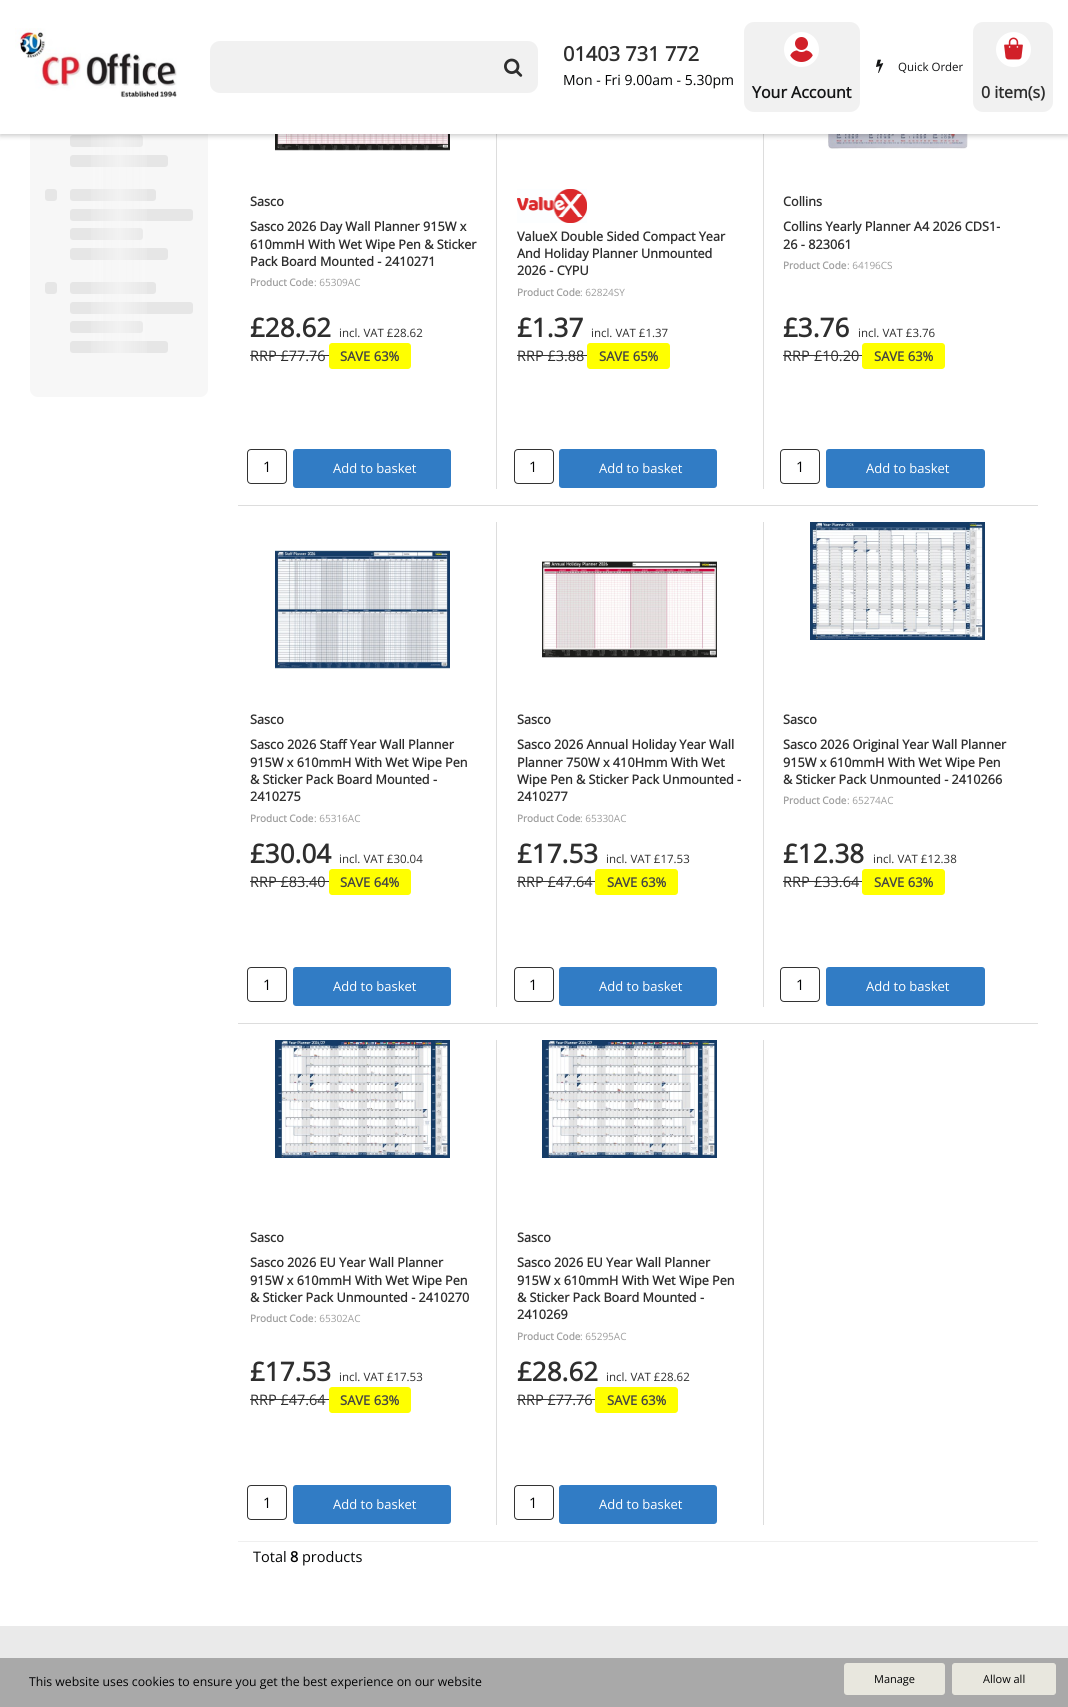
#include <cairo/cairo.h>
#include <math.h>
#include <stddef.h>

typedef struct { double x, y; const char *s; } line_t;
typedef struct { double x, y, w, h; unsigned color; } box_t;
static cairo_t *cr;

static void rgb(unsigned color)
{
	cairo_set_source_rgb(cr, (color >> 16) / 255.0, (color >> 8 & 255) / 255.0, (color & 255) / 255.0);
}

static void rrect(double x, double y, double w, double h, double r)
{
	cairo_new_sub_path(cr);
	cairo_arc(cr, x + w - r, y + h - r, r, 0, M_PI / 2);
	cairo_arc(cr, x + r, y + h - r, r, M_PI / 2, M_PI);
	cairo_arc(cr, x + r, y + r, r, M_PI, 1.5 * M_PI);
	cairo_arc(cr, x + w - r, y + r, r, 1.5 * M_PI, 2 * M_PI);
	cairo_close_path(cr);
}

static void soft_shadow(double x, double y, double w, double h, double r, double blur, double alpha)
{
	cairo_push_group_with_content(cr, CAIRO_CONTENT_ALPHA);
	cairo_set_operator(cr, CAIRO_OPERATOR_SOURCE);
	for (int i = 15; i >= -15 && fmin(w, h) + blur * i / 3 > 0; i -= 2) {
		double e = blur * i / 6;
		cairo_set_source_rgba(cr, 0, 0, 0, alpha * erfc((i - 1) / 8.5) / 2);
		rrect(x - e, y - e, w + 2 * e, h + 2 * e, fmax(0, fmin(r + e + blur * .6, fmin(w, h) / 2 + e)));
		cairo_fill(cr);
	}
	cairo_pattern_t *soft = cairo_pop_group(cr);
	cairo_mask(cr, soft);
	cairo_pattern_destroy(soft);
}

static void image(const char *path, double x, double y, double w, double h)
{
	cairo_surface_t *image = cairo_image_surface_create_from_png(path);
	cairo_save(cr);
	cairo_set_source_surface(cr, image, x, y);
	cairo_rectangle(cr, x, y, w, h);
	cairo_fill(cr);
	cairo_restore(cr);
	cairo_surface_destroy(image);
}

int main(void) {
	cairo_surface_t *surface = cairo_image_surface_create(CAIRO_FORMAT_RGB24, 1068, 1707);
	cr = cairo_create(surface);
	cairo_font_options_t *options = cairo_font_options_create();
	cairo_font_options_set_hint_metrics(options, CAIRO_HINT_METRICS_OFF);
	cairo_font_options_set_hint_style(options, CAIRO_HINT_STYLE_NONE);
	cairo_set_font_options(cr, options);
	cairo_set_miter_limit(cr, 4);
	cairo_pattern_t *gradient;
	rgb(0xffffff);
	cairo_paint(cr);
	rgb(0xf7f7f7);
	cairo_new_path(cr);
	cairo_move_to(cr, 30, -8);
	cairo_line_to(cr, 208, -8);
	cairo_line_to(cr, 208, 389);
	cairo_curve_to(cr, 208, 393.5, 204.5, 397, 200, 397);
	cairo_line_to(cr, 38, 397);
	cairo_curve_to(cr, 33.5, 397, 30, 393.5, 30, 389);
	cairo_close_path(cr);
	cairo_fill(cr);
	rgb(0xe6e6e6);
	rrect(70, 135, 73, 12, 3);
	cairo_fill(cr);
	rrect(70, 155, 98, 12, 3);
	cairo_fill(cr);
	rrect(70, 189, 86, 12, 3);
	cairo_fill(cr);
	rrect(70, 209, 123, 12, 3);
	cairo_fill(cr);
	rrect(70, 228, 73, 12, 3);
	cairo_fill(cr);
	rrect(70, 248, 98, 12, 3);
	cairo_fill(cr);
	rrect(70, 282, 86, 12, 3);
	cairo_fill(cr);
	rrect(70, 302, 123, 12, 3);
	cairo_fill(cr);
	rrect(70, 321, 73, 12, 3);
	cairo_fill(cr);
	rrect(70, 341, 98, 12, 3);
	cairo_fill(cr);
	gradient = cairo_pattern_create_linear(-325, 201, 563, 201);
	cairo_pattern_add_color_stop_rgba(gradient, 0.46, 0.969, 0.969, 0.969, 0);
	cairo_pattern_add_color_stop_rgba(gradient, 0.5, 0.969, 0.969, 0.969, 0.7);
	cairo_pattern_add_color_stop_rgba(gradient, 0.54, 0.969, 0.969, 0.969, 0);
	cairo_set_source(cr, gradient);
	cairo_pattern_destroy(gradient);
	cairo_rectangle(cr, 91, 135, 56, 218);
	cairo_fill(cr);
	rgb(0xdddddd);
	cairo_rectangle(cr, 496, 134, 1, 355);
	cairo_fill(cr);
	image("img/6.png", 275, 134, 175, 17);
	cairo_rectangle(cr, 763, 134, 1, 355);
	cairo_fill(cr);
	image("img/8.png", 828, 134, 140, 15);
	rgb(0x000000);
	soft_shadow(0, 2, 1068, 134, 0, 2.5, 0.2);
	rgb(0xffffff);
	cairo_rectangle(cr, 0, 0, 1068, 134);
	cairo_fill(cr);
	image("img/1.png", 15, 28, 162, 70);
	rgb(0xf1f1f1);
	rrect(210, 41, 328, 52, 10);
	cairo_fill(cr);
	image("img/2.png", 504, 58, 19, 19);
	image("img/3.png", 876, 59, 8, 14);
	rrect(744, 22, 116, 90, 10);
	cairo_fill(cr);
	rgb(0xffffff);
	cairo_arc(cr, 801.5, 49.5, 17.5, 0, 2 * M_PI);
	cairo_fill(cr);
	image("img/4.png", 790, 37, 23, 25);
	rgb(0xf1f1f1);
	rrect(973, 22, 80, 90, 10);
	cairo_fill(cr);
	rgb(0xffffff);
	cairo_arc(cr, 1013.5, 49.5, 17.5, 0, 2 * M_PI);
	cairo_fill(cr);
	image("img/5.png", 1004, 37, 19, 23);
	rgb(0xe6e6e6);
	rrect(45, 189, 12, 12, 3);
	cairo_fill(cr);
	rrect(45, 282, 12, 12, 3);
	cairo_fill(cr);
	rgb(0xffff00);
	cairo_new_path(cr);
	cairo_move_to(cr, 332, 343);
	cairo_line_to(cr, 374, 343);
	cairo_line_to(cr, 374, 369);
	cairo_line_to(cr, 332, 369);
	cairo_curve_to(cr, 330.5, 369, 329, 367.5, 329, 366);
	cairo_line_to(cr, 329, 346);
	cairo_curve_to(cr, 329, 344.5, 330.5, 343, 332, 343);
	cairo_close_path(cr);
	cairo_fill(cr);
	cairo_rectangle(cr, 374, 343, 15, 26);
	cairo_fill(cr);
	cairo_new_path(cr);
	cairo_move_to(cr, 389, 343);
	cairo_line_to(cr, 408, 343);
	cairo_curve_to(cr, 409.5, 343, 411, 344.5, 411, 346);
	cairo_line_to(cr, 411, 366);
	cairo_curve_to(cr, 411, 367.5, 409.5, 369, 408, 369);
	cairo_line_to(cr, 389, 369);
	cairo_close_path(cr);
	cairo_fill(cr);
	rrect(247.5, 449.5, 39, 34, 3.5);
	rgb(0x333333);
	cairo_set_line_width(cr, 1);
	cairo_stroke(cr);
	rgb(0x317cc5);
	rrect(293, 449, 158, 39, 3);
	cairo_fill(cr);
	image("img/7.png", 517, 189, 70, 34);
	rgb(0xffff00);
	cairo_new_path(cr);
	cairo_move_to(cr, 590, 343);
	cairo_line_to(cr, 632, 343);
	cairo_line_to(cr, 632, 369);
	cairo_line_to(cr, 590, 369);
	cairo_curve_to(cr, 588.5, 369, 587, 367.5, 587, 366);
	cairo_line_to(cr, 587, 346);
	cairo_curve_to(cr, 587, 344.5, 588.5, 343, 590, 343);
	cairo_close_path(cr);
	cairo_fill(cr);
	cairo_rectangle(cr, 632, 343, 15, 26);
	cairo_fill(cr);
	cairo_new_path(cr);
	cairo_move_to(cr, 647, 343);
	cairo_line_to(cr, 667, 343);
	cairo_curve_to(cr, 668.5, 343, 670, 344.5, 670, 346);
	cairo_line_to(cr, 670, 366);
	cairo_curve_to(cr, 670, 367.5, 668.5, 369, 667, 369);
	cairo_line_to(cr, 647, 369);
	cairo_close_path(cr);
	cairo_fill(cr);
	rrect(514.5, 449.5, 39, 34, 3.5);
	rgb(0x333333);
	cairo_stroke(cr);
	rgb(0x317cc5);
	rrect(559, 449, 158, 39, 3);
	cairo_fill(cr);
	rgb(0xffff00);
	cairo_new_path(cr);
	cairo_move_to(cr, 865, 343);
	cairo_line_to(cr, 907, 343);
	cairo_line_to(cr, 907, 369);
	cairo_line_to(cr, 865, 369);
	cairo_curve_to(cr, 863.5, 369, 862, 367.5, 862, 366);
	cairo_line_to(cr, 862, 346);
	cairo_curve_to(cr, 862, 344.5, 863.5, 343, 865, 343);
	cairo_close_path(cr);
	cairo_fill(cr);
	cairo_rectangle(cr, 907, 343, 15, 26);
	cairo_fill(cr);
	cairo_new_path(cr);
	cairo_move_to(cr, 922, 343);
	cairo_line_to(cr, 942, 343);
	cairo_curve_to(cr, 943.5, 343, 945, 344.5, 945, 346);
	cairo_line_to(cr, 945, 366);
	cairo_curve_to(cr, 945, 367.5, 943.5, 369, 942, 369);
	cairo_line_to(cr, 922, 369);
	cairo_close_path(cr);
	cairo_fill(cr);
	rrect(780.5, 449.5, 39, 34, 3.5);
	rgb(0x333333);
	cairo_stroke(cr);
	rgb(0x317cc5);
	rrect(826, 449, 159, 39, 3);
	cairo_fill(cr);
	rgb(0xdddddd);
	cairo_rectangle(cr, 238, 505, 800, 1);
	cairo_fill(cr);
	cairo_rectangle(cr, 496, 522, 1, 485);
	cairo_fill(cr);
	image("img/9.png", 275, 550, 175, 119);
	rgb(0xffff00);
	cairo_new_path(cr);
	cairo_move_to(cr, 332, 869);
	cairo_line_to(cr, 374, 869);
	cairo_line_to(cr, 374, 895);
	cairo_line_to(cr, 332, 895);
	cairo_curve_to(cr, 330.5, 895, 329, 893.5, 329, 892);
	cairo_line_to(cr, 329, 872);
	cairo_curve_to(cr, 329, 870.5, 330.5, 869, 332, 869);
	cairo_close_path(cr);
	cairo_fill(cr);
	cairo_rectangle(cr, 374, 869, 15, 26);
	cairo_fill(cr);
	cairo_new_path(cr);
	cairo_move_to(cr, 389, 869);
	cairo_line_to(cr, 408, 869);
	cairo_curve_to(cr, 409.5, 869, 411, 870.5, 411, 872);
	cairo_line_to(cr, 411, 892);
	cairo_curve_to(cr, 411, 893.5, 409.5, 895, 408, 895);
	cairo_line_to(cr, 389, 895);
	cairo_close_path(cr);
	cairo_fill(cr);
	rrect(247.5, 967.5, 39, 34, 3.5);
	rgb(0x333333);
	cairo_stroke(cr);
	rgb(0x317cc5);
	rrect(293, 967, 158, 39, 3);
	cairo_fill(cr);
	rgb(0xdddddd);
	cairo_rectangle(cr, 763, 522, 1, 485);
	cairo_fill(cr);
	image("img/10.png", 542, 561, 175, 97);
	rgb(0xffff00);
	cairo_new_path(cr);
	cairo_move_to(cr, 598, 869);
	cairo_line_to(cr, 641, 869);
	cairo_line_to(cr, 641, 895);
	cairo_line_to(cr, 598, 895);
	cairo_curve_to(cr, 596.5, 895, 595, 893.5, 595, 892);
	cairo_line_to(cr, 595, 872);
	cairo_curve_to(cr, 595, 870.5, 596.5, 869, 598, 869);
	cairo_close_path(cr);
	cairo_fill(cr);
	cairo_rectangle(cr, 641, 869, 14, 26);
	cairo_fill(cr);
	cairo_new_path(cr);
	cairo_move_to(cr, 655, 869);
	cairo_line_to(cr, 675, 869);
	cairo_curve_to(cr, 676.5, 869, 678, 870.5, 678, 872);
	cairo_line_to(cr, 678, 892);
	cairo_curve_to(cr, 678, 893.5, 676.5, 895, 675, 895);
	cairo_line_to(cr, 655, 895);
	cairo_close_path(cr);
	cairo_fill(cr);
	rrect(514.5, 967.5, 39, 34, 3.5);
	rgb(0x333333);
	cairo_stroke(cr);
	rgb(0x317cc5);
	rrect(559, 967, 158, 39, 3);
	cairo_fill(cr);
	image("img/11.png", 810, 522, 175, 118);
	rgb(0xffff00);
	cairo_new_path(cr);
	cairo_move_to(cr, 865, 869);
	cairo_line_to(cr, 907, 869);
	cairo_line_to(cr, 907, 895);
	cairo_line_to(cr, 865, 895);
	cairo_curve_to(cr, 863.5, 895, 862, 893.5, 862, 892);
	cairo_line_to(cr, 862, 872);
	cairo_curve_to(cr, 862, 870.5, 863.5, 869, 865, 869);
	cairo_close_path(cr);
	cairo_fill(cr);
	cairo_rectangle(cr, 907, 869, 15, 26);
	cairo_fill(cr);
	cairo_new_path(cr);
	cairo_move_to(cr, 922, 869);
	cairo_line_to(cr, 942, 869);
	cairo_curve_to(cr, 943.5, 869, 945, 870.5, 945, 872);
	cairo_line_to(cr, 945, 892);
	cairo_curve_to(cr, 945, 893.5, 943.5, 895, 942, 895);
	cairo_line_to(cr, 922, 895);
	cairo_close_path(cr);
	cairo_fill(cr);
	rrect(780.5, 967.5, 39, 34, 3.5);
	rgb(0x333333);
	cairo_stroke(cr);
	rgb(0x317cc5);
	rrect(826, 967, 159, 39, 3);
	cairo_fill(cr);
	rgb(0xdddddd);
	cairo_rectangle(cr, 238, 1023, 800, 1);
	cairo_fill(cr);
	cairo_rectangle(cr, 496, 1040, 1, 485);
	cairo_fill(cr);
	image("img/12.png", 275, 1040, 175, 118);
	rgb(0xffff00);
	cairo_new_path(cr);
	cairo_move_to(cr, 332, 1387);
	cairo_line_to(cr, 374, 1387);
	cairo_line_to(cr, 374, 1413);
	cairo_line_to(cr, 332, 1413);
	cairo_curve_to(cr, 330.5, 1413, 329, 1411.5, 329, 1410);
	cairo_line_to(cr, 329, 1390);
	cairo_curve_to(cr, 329, 1388.5, 330.5, 1387, 332, 1387);
	cairo_close_path(cr);
	cairo_fill(cr);
	cairo_rectangle(cr, 374, 1387, 15, 26);
	cairo_fill(cr);
	cairo_new_path(cr);
	cairo_move_to(cr, 389, 1387);
	cairo_line_to(cr, 408, 1387);
	cairo_curve_to(cr, 409.5, 1387, 411, 1388.5, 411, 1390);
	cairo_line_to(cr, 411, 1410);
	cairo_curve_to(cr, 411, 1411.5, 409.5, 1413, 408, 1413);
	cairo_line_to(cr, 389, 1413);
	cairo_close_path(cr);
	cairo_fill(cr);
	rrect(247.5, 1485.5, 39, 34, 3.5);
	rgb(0x333333);
	cairo_stroke(cr);
	rgb(0x317cc5);
	rrect(293, 1485, 158, 39, 3);
	cairo_fill(cr);
	rgb(0xdddddd);
	cairo_rectangle(cr, 763, 1040, 1, 485);
	cairo_fill(cr);
	image("img/13.png", 542, 1040, 175, 118);
	rgb(0xffff00);
	cairo_new_path(cr);
	cairo_move_to(cr, 598, 1387);
	cairo_line_to(cr, 641, 1387);
	cairo_line_to(cr, 641, 1413);
	cairo_line_to(cr, 598, 1413);
	cairo_curve_to(cr, 596.5, 1413, 595, 1411.5, 595, 1410);
	cairo_line_to(cr, 595, 1390);
	cairo_curve_to(cr, 595, 1388.5, 596.5, 1387, 598, 1387);
	cairo_close_path(cr);
	cairo_fill(cr);
	cairo_rectangle(cr, 641, 1387, 14, 26);
	cairo_fill(cr);
	cairo_new_path(cr);
	cairo_move_to(cr, 655, 1387);
	cairo_line_to(cr, 675, 1387);
	cairo_curve_to(cr, 676.5, 1387, 678, 1388.5, 678, 1390);
	cairo_line_to(cr, 678, 1410);
	cairo_curve_to(cr, 678, 1411.5, 676.5, 1413, 675, 1413);
	cairo_line_to(cr, 655, 1413);
	cairo_close_path(cr);
	cairo_fill(cr);
	rrect(514.5, 1485.5, 39, 34, 3.5);
	rgb(0x333333);
	cairo_stroke(cr);
	rgb(0x317cc5);
	rrect(559, 1485, 158, 39, 3);
	cairo_fill(cr);
	{
		static const box_t items[] = {
			{238, 1541, 800, 1, 0xefefef},
			{0, 1626, 1068, 32, 0xeaeaea},
			{0, 1658, 1068, 49, 0xa9a9a9},
		};
		for (size_t i = 0; i < sizeof items / sizeof *items; i++) {
			rgb(items[i].color);
			cairo_rectangle(cr, items[i].x, items[i].y, items[i].w, items[i].h);
			cairo_fill(cr);
		}
	}
	rgb(0xe8e7de);
	rrect(844, 1663, 101, 32, 3);
	cairo_fill(cr);
	rrect(952.5, 1663.5, 103, 31, 2.5);
	cairo_fill_preserve(cr);
	cairo_stroke(cr);
	cairo_select_font_face(cr, "Open Sans", CAIRO_FONT_SLANT_NORMAL, CAIRO_FONT_WEIGHT_BOLD);
	cairo_set_font_size(cr, 20);
	rgb(0x2e2e2e);
	cairo_move_to(cr, 563, 61);
	cairo_show_text(cr, "01403 731 772");
	cairo_select_font_face(cr, "Open Sans", CAIRO_FONT_SLANT_NORMAL, CAIRO_FONT_WEIGHT_NORMAL);
	cairo_set_font_size(cr, 14);
	rgb(0x020304);
	cairo_move_to(cr, 563, 85);
	cairo_show_text(cr, "Mon - Fri 9.00am - 5.30pm");
	cairo_set_font_size(cr, 11.5);
	rgb(0x131415);
	cairo_move_to(cr, 898, 71);
	cairo_show_text(cr, "Quick Order");
	cairo_select_font_face(cr, "Open Sans", CAIRO_FONT_SLANT_NORMAL, CAIRO_FONT_WEIGHT_BOLD);
	cairo_set_font_size(cr, 16);
	cairo_move_to(cr, 752, 98);
	cairo_show_text(cr, "Your Account");
	rgb(0x2e2e2e);
	cairo_move_to(cr, 981, 98);
	cairo_show_text(cr, "0 item(s)");
	cairo_set_font_size(cr, 12.7);
	{
		static const line_t items[] = {
			{250, 206, "Sasco"},
			{250, 231, "Sasco 2026 Day Wall Planner 915W x"},
			{250, 249, "610mmH With Wet Wipe Pen & Sticker"},
			{250, 266, "Pack Board Mounted - 2410271"},
		};
		for (size_t i = 0; i < sizeof items / sizeof *items; i++) {
			cairo_move_to(cr, items[i].x, items[i].y);
			cairo_show_text(cr, items[i].s);
		}
	}
	cairo_set_font_size(cr, 10);
	rgb(0x9e9e9e);
	cairo_move_to(cr, 250, 286);
	cairo_show_text(cr, "Product Code");
	cairo_select_font_face(cr, "Open Sans", CAIRO_FONT_SLANT_NORMAL, CAIRO_FONT_WEIGHT_NORMAL);
	cairo_move_to(cr, 314, 286);
	cairo_show_text(cr, ": 65309AC");
	cairo_select_font_face(cr, "Open Sans", CAIRO_FONT_SLANT_NORMAL, CAIRO_FONT_WEIGHT_BOLD);
	cairo_set_font_size(cr, 26);
	rgb(0x2e2e2e);
	cairo_move_to(cr, 250, 337);
	cairo_show_text(cr, "£28.62");
	cairo_select_font_face(cr, "Open Sans", CAIRO_FONT_SLANT_NORMAL, CAIRO_FONT_WEIGHT_NORMAL);
	cairo_set_font_size(cr, 11.5);
	cairo_move_to(cr, 339, 337);
	cairo_show_text(cr, "incl. VAT £28.62");
	cairo_set_font_size(cr, 14.5);
	cairo_move_to(cr, 250, 361);
	cairo_show_text(cr, "RRP £77.76");
	rgb(0x333333);
	cairo_rectangle(cr, 250, 355, 79, 1);
	cairo_fill(cr);
	cairo_select_font_face(cr, "Open Sans", CAIRO_FONT_SLANT_NORMAL, CAIRO_FONT_WEIGHT_BOLD);
	cairo_set_font_size(cr, 13);
	rgb(0x444444);
	cairo_move_to(cr, 340, 361);
	cairo_show_text(cr, "SAVE 63%");
	cairo_select_font_face(cr, "Open Sans", CAIRO_FONT_SLANT_NORMAL, CAIRO_FONT_WEIGHT_NORMAL);
	cairo_set_font_size(cr, 14.5);
	rgb(0x020304);
	cairo_move_to(cr, 263, 472);
	cairo_show_text(cr, "1");
	cairo_set_font_size(cr, 13);
	rgb(0xffffff);
	cairo_move_to(cr, 333, 473);
	cairo_show_text(cr, "Add to basket");
	cairo_select_font_face(cr, "Open Sans", CAIRO_FONT_SLANT_NORMAL, CAIRO_FONT_WEIGHT_BOLD);
	cairo_set_font_size(cr, 12.7);
	rgb(0x2e2e2e);
	{
		static const line_t items[] = {
			{517, 241, "ValueX Double Sided Compact Year"},
			{517, 258, "And Holiday Planner Unmounted"},
			{517, 275, "2026 - CYPU"},
		};
		for (size_t i = 0; i < sizeof items / sizeof *items; i++) {
			cairo_move_to(cr, items[i].x, items[i].y);
			cairo_show_text(cr, items[i].s);
		}
	}
	cairo_set_font_size(cr, 10);
	rgb(0x9e9e9e);
	cairo_move_to(cr, 517, 296);
	cairo_show_text(cr, "Product Code");
	cairo_select_font_face(cr, "Open Sans", CAIRO_FONT_SLANT_NORMAL, CAIRO_FONT_WEIGHT_NORMAL);
	cairo_move_to(cr, 580, 296);
	cairo_show_text(cr, ": 62824SY");
	cairo_select_font_face(cr, "Open Sans", CAIRO_FONT_SLANT_NORMAL, CAIRO_FONT_WEIGHT_BOLD);
	cairo_set_font_size(cr, 26);
	rgb(0x2e2e2e);
	cairo_move_to(cr, 517, 337);
	cairo_show_text(cr, "£1.37");
	cairo_select_font_face(cr, "Open Sans", CAIRO_FONT_SLANT_NORMAL, CAIRO_FONT_WEIGHT_NORMAL);
	cairo_set_font_size(cr, 11.5);
	cairo_move_to(cr, 591, 337);
	cairo_show_text(cr, "incl. VAT £1.37");
	cairo_set_font_size(cr, 14.5);
	cairo_move_to(cr, 517, 361);
	cairo_show_text(cr, "RRP £3.88");
	rgb(0x333333);
	cairo_rectangle(cr, 517, 355, 70, 1);
	cairo_fill(cr);
	cairo_select_font_face(cr, "Open Sans", CAIRO_FONT_SLANT_NORMAL, CAIRO_FONT_WEIGHT_BOLD);
	cairo_set_font_size(cr, 13);
	rgb(0x444444);
	cairo_move_to(cr, 599, 361);
	cairo_show_text(cr, "SAVE 65%");
	cairo_select_font_face(cr, "Open Sans", CAIRO_FONT_SLANT_NORMAL, CAIRO_FONT_WEIGHT_NORMAL);
	cairo_set_font_size(cr, 14.5);
	rgb(0x020304);
	cairo_move_to(cr, 529, 472);
	cairo_show_text(cr, "1");
	cairo_set_font_size(cr, 13);
	rgb(0xffffff);
	cairo_move_to(cr, 599, 473);
	cairo_show_text(cr, "Add to basket");
	cairo_select_font_face(cr, "Open Sans", CAIRO_FONT_SLANT_NORMAL, CAIRO_FONT_WEIGHT_BOLD);
	cairo_set_font_size(cr, 12.7);
	rgb(0x2e2e2e);
	{
		static const line_t items[] = {
			{783, 206, "Collins"},
			{783, 231, "Collins Yearly Planner A4 2026 CDS1-"},
			{783, 249, "26 - 823061"},
		};
		for (size_t i = 0; i < sizeof items / sizeof *items; i++) {
			cairo_move_to(cr, items[i].x, items[i].y);
			cairo_show_text(cr, items[i].s);
		}
	}
	cairo_set_font_size(cr, 10);
	rgb(0x9e9e9e);
	cairo_move_to(cr, 783, 269);
	cairo_show_text(cr, "Product Code");
	cairo_select_font_face(cr, "Open Sans", CAIRO_FONT_SLANT_NORMAL, CAIRO_FONT_WEIGHT_NORMAL);
	cairo_move_to(cr, 847, 269);
	cairo_show_text(cr, ": 64196CS");
	cairo_select_font_face(cr, "Open Sans", CAIRO_FONT_SLANT_NORMAL, CAIRO_FONT_WEIGHT_BOLD);
	cairo_set_font_size(cr, 26);
	rgb(0x2e2e2e);
	cairo_move_to(cr, 783, 337);
	cairo_show_text(cr, "£3.76");
	cairo_select_font_face(cr, "Open Sans", CAIRO_FONT_SLANT_NORMAL, CAIRO_FONT_WEIGHT_NORMAL);
	cairo_set_font_size(cr, 11.5);
	cairo_move_to(cr, 858, 337);
	cairo_show_text(cr, "incl. VAT £3.76");
	cairo_set_font_size(cr, 14.5);
	cairo_move_to(cr, 783, 361);
	cairo_show_text(cr, "RRP");
	rgb(0x333333);
	cairo_rectangle(cr, 783, 355, 31, 1);
	cairo_fill(cr);
	rgb(0x2e2e2e);
	cairo_move_to(cr, 814, 361);
	cairo_show_text(cr, "£10.20");
	rgb(0x333333);
	cairo_rectangle(cr, 814, 355, 48, 1);
	cairo_fill(cr);
	cairo_select_font_face(cr, "Open Sans", CAIRO_FONT_SLANT_NORMAL, CAIRO_FONT_WEIGHT_BOLD);
	cairo_set_font_size(cr, 13);
	rgb(0x444444);
	cairo_move_to(cr, 874, 361);
	cairo_show_text(cr, "SAVE 63%");
	cairo_select_font_face(cr, "Open Sans", CAIRO_FONT_SLANT_NORMAL, CAIRO_FONT_WEIGHT_NORMAL);
	cairo_set_font_size(cr, 14.5);
	rgb(0x020304);
	cairo_move_to(cr, 796, 472);
	cairo_show_text(cr, "1");
	cairo_set_font_size(cr, 13);
	rgb(0xffffff);
	cairo_move_to(cr, 866, 473);
	cairo_show_text(cr, "Add to basket");
	cairo_select_font_face(cr, "Open Sans", CAIRO_FONT_SLANT_NORMAL, CAIRO_FONT_WEIGHT_BOLD);
	cairo_set_font_size(cr, 12.7);
	rgb(0x2e2e2e);
	{
		static const line_t items[] = {
			{250, 724, "Sasco"},
			{250, 749, "Sasco 2026 Staff Year Wall Planner"},
			{250, 767, "915W x 610mmH With Wet Wipe Pen"},
			{250, 784, "& Sticker Pack Board Mounted -"},
			{250, 801, "2410275"},
		};
		for (size_t i = 0; i < sizeof items / sizeof *items; i++) {
			cairo_move_to(cr, items[i].x, items[i].y);
			cairo_show_text(cr, items[i].s);
		}
	}
	cairo_set_font_size(cr, 10);
	rgb(0x9e9e9e);
	cairo_move_to(cr, 250, 822);
	cairo_show_text(cr, "Product Code");
	cairo_select_font_face(cr, "Open Sans", CAIRO_FONT_SLANT_NORMAL, CAIRO_FONT_WEIGHT_NORMAL);
	cairo_move_to(cr, 314, 822);
	cairo_show_text(cr, ": 65316AC");
	cairo_select_font_face(cr, "Open Sans", CAIRO_FONT_SLANT_NORMAL, CAIRO_FONT_WEIGHT_BOLD);
	cairo_set_font_size(cr, 26);
	rgb(0x2e2e2e);
	cairo_move_to(cr, 250, 863);
	cairo_show_text(cr, "£30.04");
	cairo_select_font_face(cr, "Open Sans", CAIRO_FONT_SLANT_NORMAL, CAIRO_FONT_WEIGHT_NORMAL);
	cairo_set_font_size(cr, 11.5);
	cairo_move_to(cr, 339, 863);
	cairo_show_text(cr, "incl. VAT £30.04");
	cairo_set_font_size(cr, 14.5);
	cairo_move_to(cr, 250, 887);
	cairo_show_text(cr, "RRP £83.40");
	rgb(0x333333);
	cairo_rectangle(cr, 250, 881, 79, 1);
	cairo_fill(cr);
	cairo_select_font_face(cr, "Open Sans", CAIRO_FONT_SLANT_NORMAL, CAIRO_FONT_WEIGHT_BOLD);
	cairo_set_font_size(cr, 13);
	rgb(0x444444);
	cairo_move_to(cr, 340, 887);
	cairo_show_text(cr, "SAVE 64%");
	cairo_select_font_face(cr, "Open Sans", CAIRO_FONT_SLANT_NORMAL, CAIRO_FONT_WEIGHT_NORMAL);
	cairo_set_font_size(cr, 14.5);
	rgb(0x020304);
	cairo_move_to(cr, 263, 990);
	cairo_show_text(cr, "1");
	cairo_set_font_size(cr, 13);
	rgb(0xffffff);
	cairo_move_to(cr, 333, 991);
	cairo_show_text(cr, "Add to basket");
	cairo_select_font_face(cr, "Open Sans", CAIRO_FONT_SLANT_NORMAL, CAIRO_FONT_WEIGHT_BOLD);
	cairo_set_font_size(cr, 12.7);
	rgb(0x2e2e2e);
	{
		static const line_t items[] = {
			{517, 724, "Sasco"},
			{517, 749, "Sasco 2026 Annual Holiday Year Wall"},
			{517, 767, "Planner 750W x 410Hmm With Wet"},
			{517, 784, "Wipe Pen & Sticker Pack Unmounted -"},
			{517, 801, "2410277"},
		};
		for (size_t i = 0; i < sizeof items / sizeof *items; i++) {
			cairo_move_to(cr, items[i].x, items[i].y);
			cairo_show_text(cr, items[i].s);
		}
	}
	cairo_set_font_size(cr, 10);
	rgb(0x9e9e9e);
	cairo_move_to(cr, 517, 822);
	cairo_show_text(cr, "Product Code");
	cairo_select_font_face(cr, "Open Sans", CAIRO_FONT_SLANT_NORMAL, CAIRO_FONT_WEIGHT_NORMAL);
	cairo_move_to(cr, 580, 822);
	cairo_show_text(cr, ": 65330AC");
	cairo_select_font_face(cr, "Open Sans", CAIRO_FONT_SLANT_NORMAL, CAIRO_FONT_WEIGHT_BOLD);
	cairo_set_font_size(cr, 26);
	rgb(0x2e2e2e);
	cairo_move_to(cr, 517, 863);
	cairo_show_text(cr, "£17.53");
	cairo_select_font_face(cr, "Open Sans", CAIRO_FONT_SLANT_NORMAL, CAIRO_FONT_WEIGHT_NORMAL);
	cairo_set_font_size(cr, 11.5);
	cairo_move_to(cr, 606, 863);
	cairo_show_text(cr, "incl. VAT £17.53");
	cairo_set_font_size(cr, 14.5);
	cairo_move_to(cr, 517, 887);
	cairo_show_text(cr, "RRP £47.64");
	rgb(0x333333);
	cairo_rectangle(cr, 517, 881, 78, 1);
	cairo_fill(cr);
	cairo_select_font_face(cr, "Open Sans", CAIRO_FONT_SLANT_NORMAL, CAIRO_FONT_WEIGHT_BOLD);
	cairo_set_font_size(cr, 13);
	rgb(0x444444);
	cairo_move_to(cr, 607, 887);
	cairo_show_text(cr, "SAVE 63%");
	cairo_select_font_face(cr, "Open Sans", CAIRO_FONT_SLANT_NORMAL, CAIRO_FONT_WEIGHT_NORMAL);
	cairo_set_font_size(cr, 14.5);
	rgb(0x020304);
	cairo_move_to(cr, 529, 990);
	cairo_show_text(cr, "1");
	cairo_set_font_size(cr, 13);
	rgb(0xffffff);
	cairo_move_to(cr, 599, 991);
	cairo_show_text(cr, "Add to basket");
	cairo_select_font_face(cr, "Open Sans", CAIRO_FONT_SLANT_NORMAL, CAIRO_FONT_WEIGHT_BOLD);
	cairo_set_font_size(cr, 12.7);
	rgb(0x2e2e2e);
	{
		static const line_t items[] = {
			{783, 724, "Sasco"},
			{783, 749, "Sasco 2026 Original Year Wall Planner"},
			{783, 767, "915W x 610mmH With Wet Wipe Pen"},
			{783, 784, "& Sticker Pack Unmounted - 2410266"},
		};
		for (size_t i = 0; i < sizeof items / sizeof *items; i++) {
			cairo_move_to(cr, items[i].x, items[i].y);
			cairo_show_text(cr, items[i].s);
		}
	}
	cairo_set_font_size(cr, 10);
	rgb(0x9e9e9e);
	cairo_move_to(cr, 783, 804);
	cairo_show_text(cr, "Product Code");
	cairo_select_font_face(cr, "Open Sans", CAIRO_FONT_SLANT_NORMAL, CAIRO_FONT_WEIGHT_NORMAL);
	cairo_move_to(cr, 847, 804);
	cairo_show_text(cr, ": 65274AC");
	cairo_select_font_face(cr, "Open Sans", CAIRO_FONT_SLANT_NORMAL, CAIRO_FONT_WEIGHT_BOLD);
	cairo_set_font_size(cr, 26);
	rgb(0x2e2e2e);
	cairo_move_to(cr, 783, 863);
	cairo_show_text(cr, "£12.38");
	cairo_select_font_face(cr, "Open Sans", CAIRO_FONT_SLANT_NORMAL, CAIRO_FONT_WEIGHT_NORMAL);
	cairo_set_font_size(cr, 11.5);
	cairo_move_to(cr, 873, 863);
	cairo_show_text(cr, "incl. VAT £12.38");
	cairo_set_font_size(cr, 14.5);
	cairo_move_to(cr, 783, 887);
	cairo_show_text(cr, "RRP");
	rgb(0x333333);
	cairo_rectangle(cr, 783, 881, 31, 1);
	cairo_fill(cr);
	rgb(0x2e2e2e);
	cairo_move_to(cr, 814, 887);
	cairo_show_text(cr, "£33.64");
	rgb(0x333333);
	cairo_rectangle(cr, 814, 881, 48, 1);
	cairo_fill(cr);
	cairo_select_font_face(cr, "Open Sans", CAIRO_FONT_SLANT_NORMAL, CAIRO_FONT_WEIGHT_BOLD);
	cairo_set_font_size(cr, 13);
	rgb(0x444444);
	cairo_move_to(cr, 874, 887);
	cairo_show_text(cr, "SAVE 63%");
	cairo_select_font_face(cr, "Open Sans", CAIRO_FONT_SLANT_NORMAL, CAIRO_FONT_WEIGHT_NORMAL);
	cairo_set_font_size(cr, 14.5);
	rgb(0x020304);
	cairo_move_to(cr, 796, 990);
	cairo_show_text(cr, "1");
	cairo_set_font_size(cr, 13);
	rgb(0xffffff);
	cairo_move_to(cr, 866, 991);
	cairo_show_text(cr, "Add to basket");
	cairo_select_font_face(cr, "Open Sans", CAIRO_FONT_SLANT_NORMAL, CAIRO_FONT_WEIGHT_BOLD);
	cairo_set_font_size(cr, 12.7);
	rgb(0x2e2e2e);
	{
		static const line_t items[] = {
			{250, 1242, "Sasco"},
			{250, 1267, "Sasco 2026 EU Year Wall Planner"},
			{250, 1285, "915W x 610mmH With Wet Wipe Pen"},
			{250, 1302, "& Sticker Pack Unmounted - 2410270"},
		};
		for (size_t i = 0; i < sizeof items / sizeof *items; i++) {
			cairo_move_to(cr, items[i].x, items[i].y);
			cairo_show_text(cr, items[i].s);
		}
	}
	cairo_set_font_size(cr, 10);
	rgb(0x9e9e9e);
	cairo_move_to(cr, 250, 1322);
	cairo_show_text(cr, "Product Code");
	cairo_select_font_face(cr, "Open Sans", CAIRO_FONT_SLANT_NORMAL, CAIRO_FONT_WEIGHT_NORMAL);
	cairo_move_to(cr, 314, 1322);
	cairo_show_text(cr, ": 65302AC");
	cairo_select_font_face(cr, "Open Sans", CAIRO_FONT_SLANT_NORMAL, CAIRO_FONT_WEIGHT_BOLD);
	cairo_set_font_size(cr, 26);
	rgb(0x2e2e2e);
	cairo_move_to(cr, 250, 1381);
	cairo_show_text(cr, "£17.53");
	cairo_select_font_face(cr, "Open Sans", CAIRO_FONT_SLANT_NORMAL, CAIRO_FONT_WEIGHT_NORMAL);
	cairo_set_font_size(cr, 11.5);
	cairo_move_to(cr, 339, 1381);
	cairo_show_text(cr, "incl. VAT £17.53");
	cairo_set_font_size(cr, 14.5);
	cairo_move_to(cr, 250, 1405);
	cairo_show_text(cr, "RRP £47.64");
	rgb(0x333333);
	cairo_rectangle(cr, 250, 1399, 79, 1);
	cairo_fill(cr);
	cairo_select_font_face(cr, "Open Sans", CAIRO_FONT_SLANT_NORMAL, CAIRO_FONT_WEIGHT_BOLD);
	cairo_set_font_size(cr, 13);
	rgb(0x444444);
	cairo_move_to(cr, 340, 1405);
	cairo_show_text(cr, "SAVE 63%");
	cairo_select_font_face(cr, "Open Sans", CAIRO_FONT_SLANT_NORMAL, CAIRO_FONT_WEIGHT_NORMAL);
	cairo_set_font_size(cr, 14.5);
	rgb(0x020304);
	cairo_move_to(cr, 263, 1508);
	cairo_show_text(cr, "1");
	cairo_set_font_size(cr, 13);
	rgb(0xffffff);
	cairo_move_to(cr, 333, 1509);
	cairo_show_text(cr, "Add to basket");
	cairo_select_font_face(cr, "Open Sans", CAIRO_FONT_SLANT_NORMAL, CAIRO_FONT_WEIGHT_BOLD);
	cairo_set_font_size(cr, 12.7);
	rgb(0x2e2e2e);
	{
		static const line_t items[] = {
			{517, 1242, "Sasco"},
			{517, 1267, "Sasco 2026 EU Year Wall Planner"},
			{517, 1285, "915W x 610mmH With Wet Wipe Pen"},
			{517, 1302, "& Sticker Pack Board Mounted -"},
			{517, 1319, "2410269"},
		};
		for (size_t i = 0; i < sizeof items / sizeof *items; i++) {
			cairo_move_to(cr, items[i].x, items[i].y);
			cairo_show_text(cr, items[i].s);
		}
	}
	cairo_set_font_size(cr, 10);
	rgb(0x9e9e9e);
	cairo_move_to(cr, 517, 1340);
	cairo_show_text(cr, "Product Code");
	cairo_select_font_face(cr, "Open Sans", CAIRO_FONT_SLANT_NORMAL, CAIRO_FONT_WEIGHT_NORMAL);
	cairo_move_to(cr, 580, 1340);
	cairo_show_text(cr, ": 65295AC");
	cairo_select_font_face(cr, "Open Sans", CAIRO_FONT_SLANT_NORMAL, CAIRO_FONT_WEIGHT_BOLD);
	cairo_set_font_size(cr, 26);
	rgb(0x2e2e2e);
	cairo_move_to(cr, 517, 1381);
	cairo_show_text(cr, "£28.62");
	cairo_select_font_face(cr, "Open Sans", CAIRO_FONT_SLANT_NORMAL, CAIRO_FONT_WEIGHT_NORMAL);
	cairo_set_font_size(cr, 11.5);
	cairo_move_to(cr, 606, 1381);
	cairo_show_text(cr, "incl. VAT £28.62");
	cairo_set_font_size(cr, 14.5);
	cairo_move_to(cr, 517, 1405);
	cairo_show_text(cr, "RRP £77.76");
	rgb(0x333333);
	cairo_rectangle(cr, 517, 1399, 78, 1);
	cairo_fill(cr);
	cairo_select_font_face(cr, "Open Sans", CAIRO_FONT_SLANT_NORMAL, CAIRO_FONT_WEIGHT_BOLD);
	cairo_set_font_size(cr, 13);
	rgb(0x444444);
	cairo_move_to(cr, 607, 1405);
	cairo_show_text(cr, "SAVE 63%");
	cairo_select_font_face(cr, "Open Sans", CAIRO_FONT_SLANT_NORMAL, CAIRO_FONT_WEIGHT_NORMAL);
	cairo_set_font_size(cr, 14.5);
	rgb(0x020304);
	cairo_move_to(cr, 529, 1508);
	cairo_show_text(cr, "1");
	cairo_set_font_size(cr, 13);
	rgb(0xffffff);
	cairo_move_to(cr, 599, 1509);
	cairo_show_text(cr, "Add to basket");
	cairo_set_font_size(cr, 14.5);
	rgb(0x020304);
	cairo_move_to(cr, 253, 1562);
	cairo_show_text(cr, "Total");
	cairo_select_font_face(cr, "Open Sans", CAIRO_FONT_SLANT_NORMAL, CAIRO_FONT_WEIGHT_BOLD);
	cairo_move_to(cr, 290, 1562);
	cairo_show_text(cr, "8");
	cairo_select_font_face(cr, "Open Sans", CAIRO_FONT_SLANT_NORMAL, CAIRO_FONT_WEIGHT_NORMAL);
	cairo_move_to(cr, 302, 1562);
	cairo_show_text(cr, "products");
	cairo_set_font_size(cr, 12.25);
	cairo_move_to(cr, 29, 1686);
	cairo_show_text(cr, "This website uses cookies to ensure you get the best experience on our website");
	cairo_set_font_size(cr, 11);
	cairo_move_to(cr, 874, 1683);
	cairo_show_text(cr, "Manage");
	cairo_move_to(cr, 983, 1683);
	cairo_show_text(cr, "Allow all");
	cairo_surface_write_to_png(surface, "page.png");
	cairo_font_options_destroy(options);
	cairo_destroy(cr);
	cairo_surface_destroy(surface);
	return 0;
}
